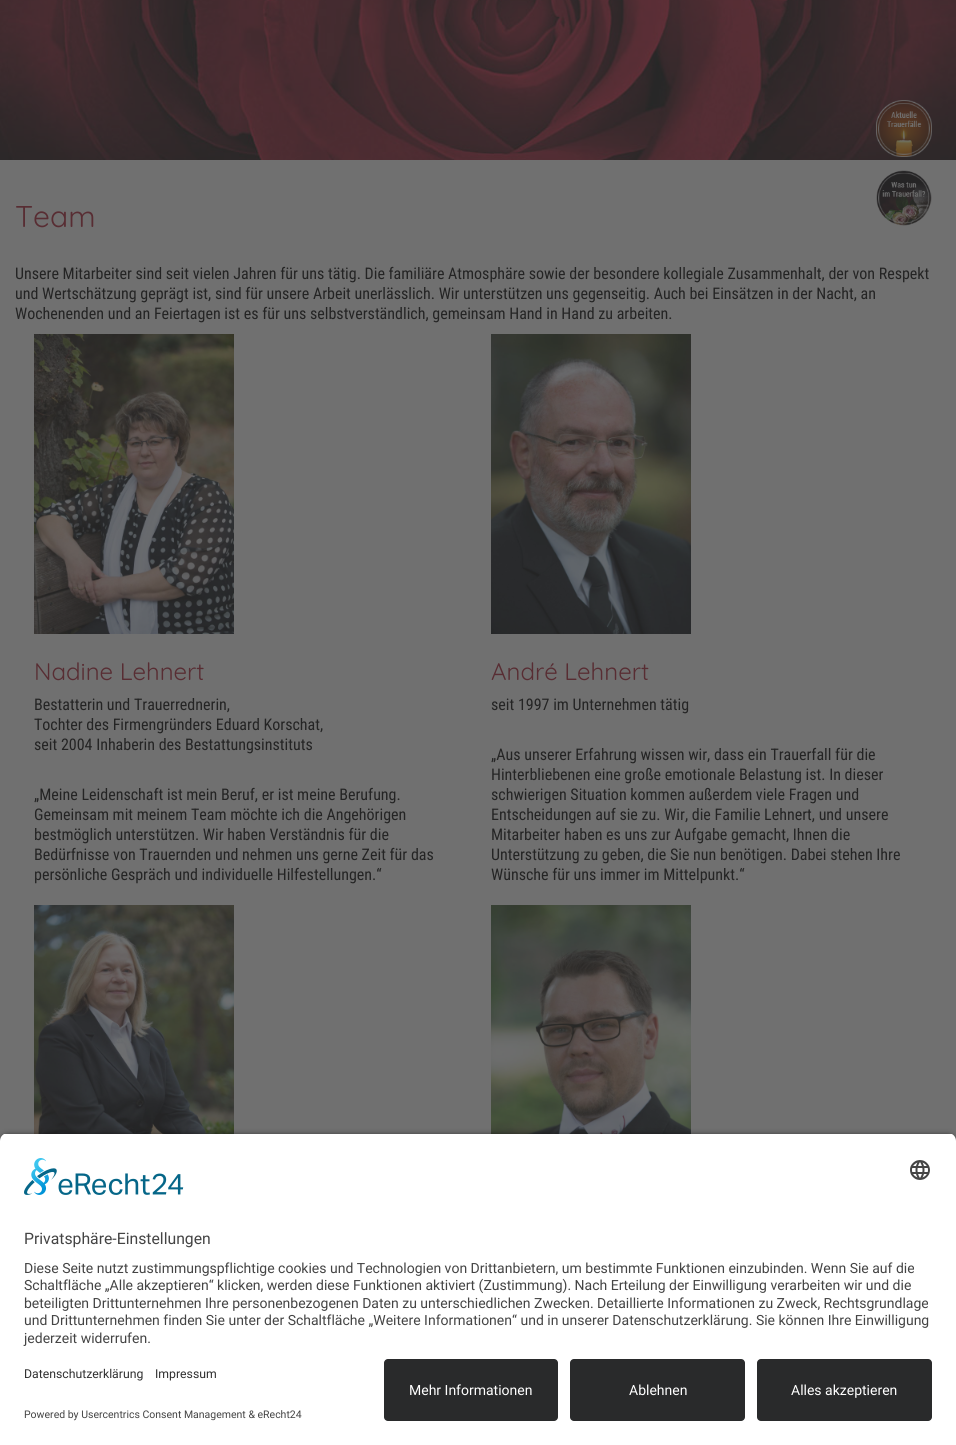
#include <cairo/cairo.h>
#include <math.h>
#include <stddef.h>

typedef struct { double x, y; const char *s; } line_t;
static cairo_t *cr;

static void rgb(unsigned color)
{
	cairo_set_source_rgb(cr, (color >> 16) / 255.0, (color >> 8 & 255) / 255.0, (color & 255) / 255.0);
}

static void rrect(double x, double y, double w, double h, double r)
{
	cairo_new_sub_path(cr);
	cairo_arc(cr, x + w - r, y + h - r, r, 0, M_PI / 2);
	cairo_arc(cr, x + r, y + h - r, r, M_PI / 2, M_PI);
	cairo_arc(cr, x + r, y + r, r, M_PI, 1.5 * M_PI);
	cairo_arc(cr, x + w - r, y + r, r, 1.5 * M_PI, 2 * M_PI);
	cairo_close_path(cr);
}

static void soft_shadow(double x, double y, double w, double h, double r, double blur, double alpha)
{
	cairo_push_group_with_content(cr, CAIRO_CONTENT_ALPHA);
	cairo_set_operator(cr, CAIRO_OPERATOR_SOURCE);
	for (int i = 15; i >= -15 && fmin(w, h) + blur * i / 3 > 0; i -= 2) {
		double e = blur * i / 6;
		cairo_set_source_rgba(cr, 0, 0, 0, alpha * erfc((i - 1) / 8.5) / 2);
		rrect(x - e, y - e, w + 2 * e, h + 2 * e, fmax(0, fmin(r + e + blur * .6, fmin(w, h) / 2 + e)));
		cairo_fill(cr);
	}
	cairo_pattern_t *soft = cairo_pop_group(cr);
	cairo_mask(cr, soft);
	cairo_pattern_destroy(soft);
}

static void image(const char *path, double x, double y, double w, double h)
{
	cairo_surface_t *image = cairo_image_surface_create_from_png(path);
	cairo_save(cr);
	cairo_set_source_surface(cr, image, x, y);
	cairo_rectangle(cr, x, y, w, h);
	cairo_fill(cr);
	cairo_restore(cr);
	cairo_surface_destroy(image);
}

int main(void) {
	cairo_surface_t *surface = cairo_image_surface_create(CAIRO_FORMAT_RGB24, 956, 1445);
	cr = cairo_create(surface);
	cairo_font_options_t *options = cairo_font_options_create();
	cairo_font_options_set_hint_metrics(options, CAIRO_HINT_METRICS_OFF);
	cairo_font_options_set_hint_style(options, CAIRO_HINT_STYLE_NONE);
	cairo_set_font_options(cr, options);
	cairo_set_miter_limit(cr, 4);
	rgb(0x707070);
	cairo_paint(cr);
	image("img/3.png", 0, 0, 956, 160);
	image("img/1.png", 876, 100, 56, 57);
	image("img/2.png", 876, 170, 56, 56);
	image("img/4.png", 34, 334, 200, 300);
	image("img/5.png", 491, 334, 200, 300);
	image("img/6.png", 34, 905, 200, 229);
	image("img/7.png", 491, 905, 200, 229);
	rgb(0x000000);
	soft_shadow(0, 1136, 956, 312, 8, 3.5, 0.8);
	cairo_save(cr);
	cairo_new_path(cr);
	cairo_move_to(cr, 8, 1133);
	cairo_line_to(cr, 948, 1133);
	cairo_curve_to(cr, 952.5, 1133, 956, 1136.5, 956, 1141);
	cairo_line_to(cr, 956, 1351);
	cairo_line_to(cr, 0, 1351);
	cairo_line_to(cr, 0, 1141);
	cairo_curve_to(cr, 0, 1136.5, 3.5, 1133, 8, 1133);
	cairo_close_path(cr);
	cairo_clip(cr);
	rgb(0xffffff);
	cairo_rectangle(cr, 0, 1134, 956, 217);
	cairo_fill(cr);
	cairo_restore(cr);
	image("img/8.png", 24, 1158, 160, 37);
	image("img/9.png", 910, 1160, 20, 20);
	rgb(0xffffff);
	cairo_rectangle(cr, 0, 1351, 956, 94);
	cairo_fill(cr);
	rgb(0x292a2b);
	rrect(384, 1359, 174, 62, 4);
	cairo_fill(cr);
	rrect(570, 1359, 175, 62, 4);
	cairo_fill(cr);
	rrect(757, 1359, 175, 62, 4);
	cairo_fill(cr);
	cairo_select_font_face(cr, "Quicksand", CAIRO_FONT_SLANT_NORMAL, CAIRO_FONT_WEIGHT_NORMAL);
	cairo_set_font_size(cr, 30);
	rgb(0x582d33);
	cairo_move_to(cr, 15, 227);
	cairo_show_text(cr, "Team");
	cairo_select_font_face(cr, "Roboto Condensed", CAIRO_FONT_SLANT_NORMAL, CAIRO_FONT_WEIGHT_NORMAL);
	cairo_set_font_size(cr, 16);
	rgb(0x242424);
	{
		static const line_t items[] = {
			{15, 279, "Unsere Mitarbeiter sind seit vielen Jahren für uns tätig. Die familiäre Atmosphäre sowie der besondere kollegiale Zusammenhalt, der von Respekt"},
			{15, 299, "und Wertschätzung geprägt ist, sind für unsere Arbeit unerlässlich. Wir unterstützen uns gegenseitig. Auch bei Einsätzen in der Nacht, an"},
			{15, 319, "Wochenenden und an Feiertagen ist es für uns selbstverständlich, gemeinsam Hand in Hand zu arbeiten."},
		};
		for (size_t i = 0; i < sizeof items / sizeof *items; i++) {
			cairo_move_to(cr, items[i].x, items[i].y);
			cairo_show_text(cr, items[i].s);
		}
	}
	cairo_select_font_face(cr, "Quicksand", CAIRO_FONT_SLANT_NORMAL, CAIRO_FONT_WEIGHT_NORMAL);
	cairo_set_font_size(cr, 24);
	rgb(0x582d33);
	cairo_move_to(cr, 34, 680);
	cairo_show_text(cr, "Nadine Lehnert");
	cairo_select_font_face(cr, "Roboto Condensed", CAIRO_FONT_SLANT_NORMAL, CAIRO_FONT_WEIGHT_NORMAL);
	cairo_set_font_size(cr, 16);
	rgb(0x242424);
	{
		static const line_t items[] = {
			{34, 710, "Bestatterin und Trauerrednerin,"},
			{34, 730, "Tochter des Firmengründers Eduard Korschat,"},
			{34, 750, "seit 2004 Inhaberin des Bestattungsinstituts"},
			{34, 800, "„Meine Leidenschaft ist mein Beruf, er ist meine Berufung."},
			{34, 820, "Gemeinsam mit meinem Team möchte ich die Angehörigen"},
			{34, 840, "bestmöglich unterstützen. Wir haben Verständnis für die"},
			{34, 860, "Bedürfnisse von Trauernden und nehmen uns gerne Zeit für das"},
			{34, 880, "persönliche Gespräch und individuelle Hilfestellungen.“"},
		};
		for (size_t i = 0; i < sizeof items / sizeof *items; i++) {
			cairo_move_to(cr, items[i].x, items[i].y);
			cairo_show_text(cr, items[i].s);
		}
	}
	cairo_select_font_face(cr, "Quicksand", CAIRO_FONT_SLANT_NORMAL, CAIRO_FONT_WEIGHT_NORMAL);
	cairo_set_font_size(cr, 24);
	rgb(0x582d33);
	cairo_move_to(cr, 491, 680);
	cairo_show_text(cr, "André Lehnert");
	cairo_select_font_face(cr, "Roboto Condensed", CAIRO_FONT_SLANT_NORMAL, CAIRO_FONT_WEIGHT_NORMAL);
	cairo_set_font_size(cr, 16);
	rgb(0x242424);
	{
		static const line_t items[] = {
			{491, 710, "seit 1997 im Unternehmen tätig"},
			{491, 760, "„Aus unserer Erfahrung wissen wir, dass ein Trauerfall für die"},
			{491, 780, "Hinterbliebenen eine große emotionale Belastung ist. In dieser"},
			{491, 800, "schwierigen Situation kommen außerdem viele Fragen und"},
			{491, 820, "Entscheidungen auf sie zu. Wir, die Familie Lehnert, und unsere"},
			{491, 840, "Mitarbeiter haben es uns zur Aufgabe gemacht, Ihnen die"},
			{491, 860, "Unterstützung zu geben, die Sie nun benötigen. Dabei stehen Ihre"},
			{491, 880, "Wünsche für uns immer im Mittelpunkt.“"},
		};
		for (size_t i = 0; i < sizeof items / sizeof *items; i++) {
			cairo_move_to(cr, items[i].x, items[i].y);
			cairo_show_text(cr, items[i].s);
		}
	}
	cairo_select_font_face(cr, "Roboto", CAIRO_FONT_SLANT_NORMAL, CAIRO_FONT_WEIGHT_NORMAL);
	cairo_set_font_size(cr, 15.75);
	rgb(0x444444);
	cairo_move_to(cr, 24, 1244);
	cairo_show_text(cr, "Privatsphäre-Einstellungen");
	cairo_set_font_size(cr, 14);
	{
		static const line_t items[] = {
			{24, 1273, "Diese Seite nutzt zustimmungspflichtige cookies und Technologien von Drittanbietern, um bestimmte Funktionen einzubinden. Wenn Sie auf die"},
			{24, 1290, "Schaltfläche „Alle akzeptieren“ klicken, werden diese Funktionen aktiviert (Zustimmung). Nach Erteilung der Einwilligung verarbeiten wir und die"},
			{24, 1308, "beteiligten Drittunternehmen Ihre personenbezogenen Daten zu unterschiedlichen Zwecken. Detaillierte Informationen zu Zweck, Rechtsgrundlage"},
			{24, 1325, "und Drittunternehmen finden Sie unter der Schaltfläche „Weitere Informationen“ und in unserer Datenschutzerklärung. Sie können Ihre Einwilligung"},
			{24, 1343, "jederzeit widerrufen."},
		};
		for (size_t i = 0; i < sizeof items / sizeof *items; i++) {
			cairo_move_to(cr, items[i].x, items[i].y);
			cairo_show_text(cr, items[i].s);
		}
	}
	cairo_set_font_size(cr, 12.25);
	rgb(0x303030);
	cairo_move_to(cr, 24, 1378);
	cairo_show_text(cr, "Datenschutzerklärung");
	cairo_move_to(cr, 155, 1378);
	cairo_show_text(cr, "Impressum");
	cairo_set_font_size(cr, 10.5);
	rgb(0x444444);
	cairo_move_to(cr, 24, 1418);
	cairo_show_text(cr, "Powered by Usercentrics Consent Management & eRecht24");
	cairo_set_font_size(cr, 14);
	rgb(0xffffff);
	{
		static const line_t items[] = {
			{409, 1395, "Mehr Informationen"},
			{629, 1395, "Ablehnen"},
			{791, 1395, "Alles akzeptieren"},
		};
		for (size_t i = 0; i < sizeof items / sizeof *items; i++) {
			cairo_move_to(cr, items[i].x, items[i].y);
			cairo_show_text(cr, items[i].s);
		}
	}
	cairo_surface_write_to_png(surface, "page.png");
	cairo_font_options_destroy(options);
	cairo_destroy(cr);
	cairo_surface_destroy(surface);
	return 0;
}
